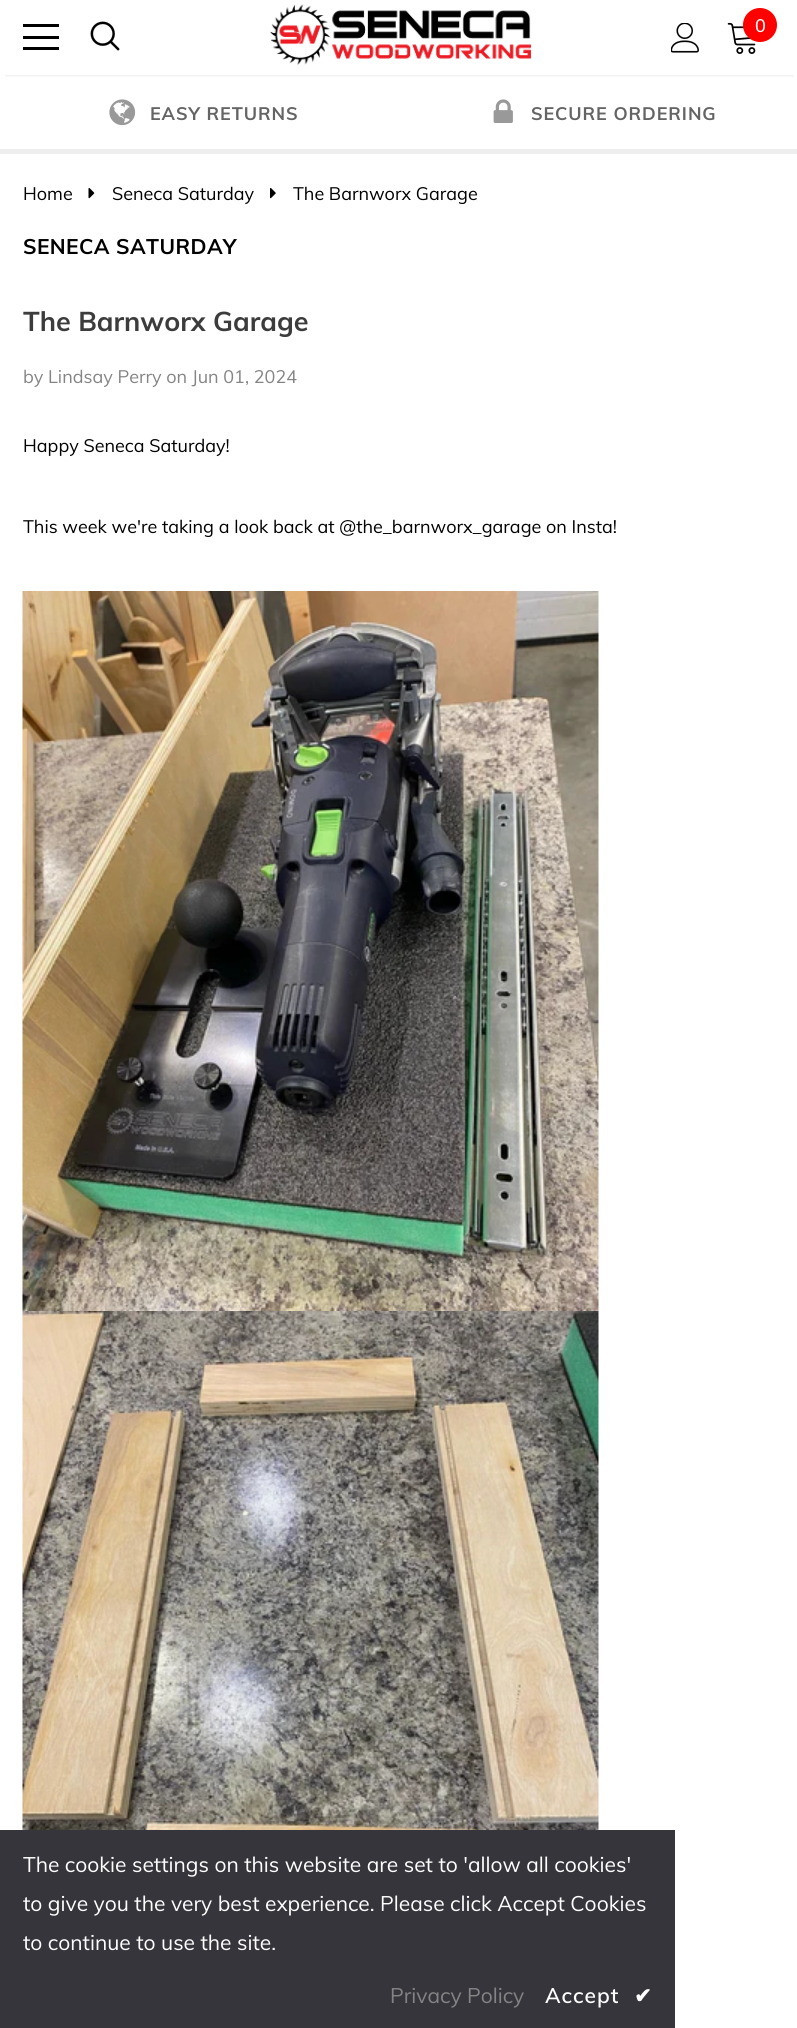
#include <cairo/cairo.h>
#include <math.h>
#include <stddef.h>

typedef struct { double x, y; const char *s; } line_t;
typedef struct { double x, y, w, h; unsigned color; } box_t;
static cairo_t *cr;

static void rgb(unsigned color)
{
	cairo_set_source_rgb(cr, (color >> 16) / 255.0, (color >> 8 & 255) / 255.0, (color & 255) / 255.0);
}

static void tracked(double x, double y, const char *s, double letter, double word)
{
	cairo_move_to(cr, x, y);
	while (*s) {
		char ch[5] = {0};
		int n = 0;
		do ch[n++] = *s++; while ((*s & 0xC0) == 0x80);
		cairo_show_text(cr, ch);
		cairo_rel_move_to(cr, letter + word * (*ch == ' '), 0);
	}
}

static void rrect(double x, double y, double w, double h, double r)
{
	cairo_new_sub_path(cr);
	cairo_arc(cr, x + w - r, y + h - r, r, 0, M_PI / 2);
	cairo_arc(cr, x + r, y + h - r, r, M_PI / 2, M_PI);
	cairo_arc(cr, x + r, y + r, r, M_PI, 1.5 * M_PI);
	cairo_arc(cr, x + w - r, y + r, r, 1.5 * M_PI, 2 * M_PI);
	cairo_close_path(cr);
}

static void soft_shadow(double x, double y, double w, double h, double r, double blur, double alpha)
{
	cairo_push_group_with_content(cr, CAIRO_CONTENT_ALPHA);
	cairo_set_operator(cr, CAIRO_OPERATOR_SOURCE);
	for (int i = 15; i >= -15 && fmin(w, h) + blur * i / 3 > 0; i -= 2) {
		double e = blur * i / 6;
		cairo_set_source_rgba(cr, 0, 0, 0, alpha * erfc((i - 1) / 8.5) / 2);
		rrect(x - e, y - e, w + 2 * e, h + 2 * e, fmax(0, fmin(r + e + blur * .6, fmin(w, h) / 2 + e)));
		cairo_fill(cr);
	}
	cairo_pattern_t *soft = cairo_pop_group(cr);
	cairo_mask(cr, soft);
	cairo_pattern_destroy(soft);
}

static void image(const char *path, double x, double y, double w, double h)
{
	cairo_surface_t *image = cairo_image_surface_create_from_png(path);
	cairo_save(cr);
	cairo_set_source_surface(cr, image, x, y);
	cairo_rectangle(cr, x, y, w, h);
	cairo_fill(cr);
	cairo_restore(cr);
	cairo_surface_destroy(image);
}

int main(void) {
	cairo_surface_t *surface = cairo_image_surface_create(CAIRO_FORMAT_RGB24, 797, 2028);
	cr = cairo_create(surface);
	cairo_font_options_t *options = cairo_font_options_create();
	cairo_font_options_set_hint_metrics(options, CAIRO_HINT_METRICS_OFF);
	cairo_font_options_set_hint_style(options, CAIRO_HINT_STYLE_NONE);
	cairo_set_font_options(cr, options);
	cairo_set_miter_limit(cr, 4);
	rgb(0xffffff);
	cairo_paint(cr);
	cairo_save(cr);
	cairo_rectangle(cr, 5, 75, 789, 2);
	cairo_clip(cr);
	rgb(0x000000);
	soft_shadow(5, 9, 789, 66, 0, 2, 0.12);
	cairo_restore(cr);
	{
		static const box_t items[] = {
			{23, 24, 36, 3, 0x000000},
			{23, 36, 36, 3, 0x000000},
			{23, 47, 36, 3, 0x000000},
		};
		for (size_t i = 0; i < sizeof items / sizeof *items; i++) {
			rgb(items[i].color);
			cairo_rectangle(cr, items[i].x, items[i].y, items[i].w, items[i].h);
			cairo_fill(cr);
		}
	}
	image("img/1.png", 90, 21, 30, 30);
	image("img/2.png", 270, 4, 261, 61);
	image("img/3.png", 671, 23, 28, 30);
	image("img/4.png", 727, 22, 29, 32);
	rgb(0xfe0000);
	cairo_arc(cr, 760, 25, 17, 0, 2 * M_PI);
	cairo_fill(cr);
	rgb(0xeeeeee);
	cairo_rectangle(cr, 0, 149, 797, 5);
	cairo_fill(cr);
	image("img/5.png", 109, 99, 27, 27);
	image("img/6.png", 493, 99, 20, 24);
	image("img/7.png", 88, 188, 7, 11);
	image("img/8.png", 270, 188, 6, 11);
	image("img/9.png", 22, 591, 577, 720);
	image("img/10.png", 22, 1311, 577, 519);
	rgb(0x37353c);
	cairo_rectangle(cr, 0, 1830, 675, 198);
	cairo_fill(cr);
	cairo_select_font_face(cr, "Muli Medium", CAIRO_FONT_SLANT_NORMAL, CAIRO_FONT_WEIGHT_NORMAL);
	cairo_set_font_size(cr, 18);
	rgb(0xffffff);
	cairo_move_to(cr, 755, 32);
	cairo_show_text(cr, "0");
	cairo_select_font_face(cr, "Muli", CAIRO_FONT_SLANT_NORMAL, CAIRO_FONT_WEIGHT_BOLD);
	rgb(0x646464);
	tracked(150, 120, "EASY RETURNS", 0.9, 0);
	tracked(531, 120, "SECURE ORDERING", 0.9, 0);
	cairo_select_font_face(cr, "Muli", CAIRO_FONT_SLANT_NORMAL, CAIRO_FONT_WEIGHT_NORMAL);
	rgb(0x000000);
	{
		static const line_t items[] = {
			{23, 200, "Home"},
			{112, 200, "Seneca Saturday"},
			{293, 200, "The Barnworx Garage"},
		};
		for (size_t i = 0; i < sizeof items / sizeof *items; i++) {
			cairo_move_to(cr, items[i].x, items[i].y);
			cairo_show_text(cr, items[i].s);
		}
	}
	cairo_select_font_face(cr, "Muli", CAIRO_FONT_SLANT_NORMAL, CAIRO_FONT_WEIGHT_BOLD);
	cairo_set_font_size(cr, 21);
	tracked(23, 254, "SENECA SATURDAY", 0.4, 0);
	cairo_set_font_size(cr, 27);
	rgb(0x3c3c3c);
	cairo_move_to(cr, 23, 331);
	cairo_show_text(cr, "The Barnworx Garage");
	cairo_select_font_face(cr, "Muli", CAIRO_FONT_SLANT_NORMAL, CAIRO_FONT_WEIGHT_NORMAL);
	cairo_set_font_size(cr, 18);
	rgb(0x848484);
	cairo_move_to(cr, 23, 383);
	cairo_show_text(cr, "by Lindsay Perry on Jun 01, 2024");
	rgb(0x000000);
	cairo_move_to(cr, 23, 452);
	cairo_show_text(cr, "Happy Seneca Saturday!");
	cairo_move_to(cr, 23, 533);
	cairo_show_text(cr, "This week we're taking a look back at @the_barnworx_garage on Insta!");
	cairo_set_font_size(cr, 21);
	rgb(0xffffff);
	{
		static const line_t items[] = {
			{23, 1872, "The cookie settings on this website are set to 'allow all cookies'"},
			{23, 1911, "to give you the very best experience. Please click Accept Cookies"},
			{23, 1950, "to continue to use the site."},
		};
		for (size_t i = 0; i < sizeof items / sizeof *items; i++) {
			cairo_move_to(cr, items[i].x, items[i].y);
			cairo_show_text(cr, items[i].s);
		}
	}
	rgb(0x848484);
	cairo_move_to(cr, 390, 2003);
	cairo_show_text(cr, "Privacy Policy");
	cairo_select_font_face(cr, "Muli SemiBold", CAIRO_FONT_SLANT_NORMAL, CAIRO_FONT_WEIGHT_NORMAL);
	rgb(0xffffff);
	tracked(545, 2003, "Accept", 1, 0);
	cairo_select_font_face(cr, "DejaVu Sans", CAIRO_FONT_SLANT_NORMAL, CAIRO_FONT_WEIGHT_BOLD);
	tracked(634, 2003, "✔", 1, 0);
	cairo_surface_write_to_png(surface, "page.png");
	cairo_font_options_destroy(options);
	cairo_destroy(cr);
	cairo_surface_destroy(surface);
	return 0;
}
